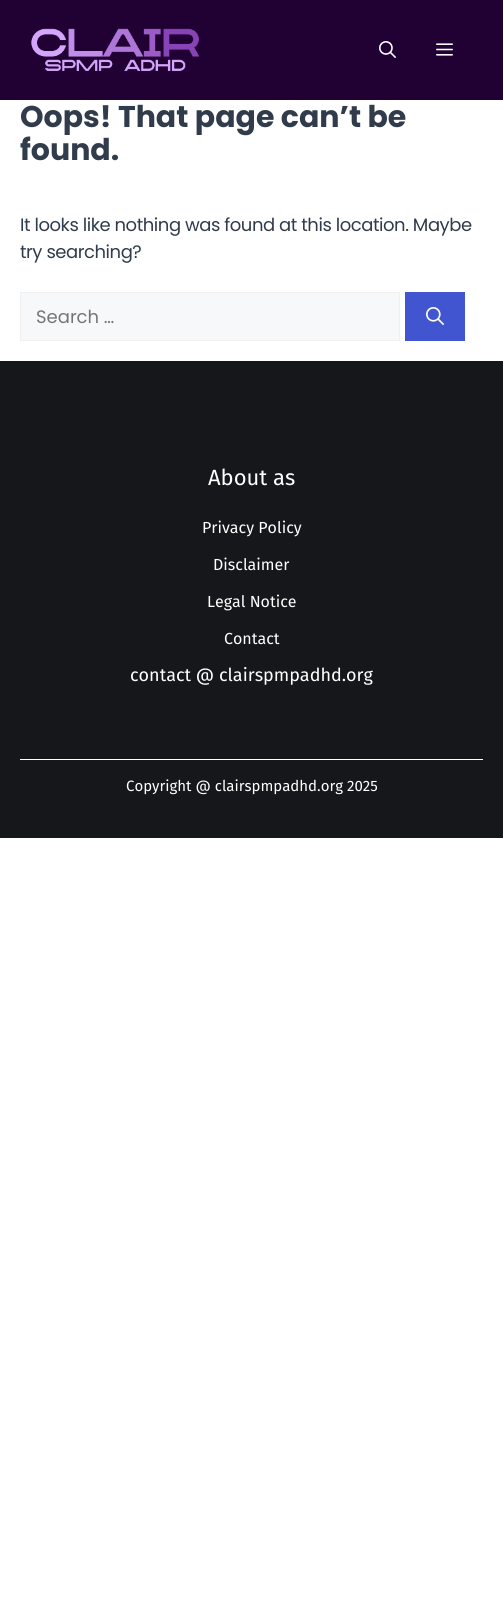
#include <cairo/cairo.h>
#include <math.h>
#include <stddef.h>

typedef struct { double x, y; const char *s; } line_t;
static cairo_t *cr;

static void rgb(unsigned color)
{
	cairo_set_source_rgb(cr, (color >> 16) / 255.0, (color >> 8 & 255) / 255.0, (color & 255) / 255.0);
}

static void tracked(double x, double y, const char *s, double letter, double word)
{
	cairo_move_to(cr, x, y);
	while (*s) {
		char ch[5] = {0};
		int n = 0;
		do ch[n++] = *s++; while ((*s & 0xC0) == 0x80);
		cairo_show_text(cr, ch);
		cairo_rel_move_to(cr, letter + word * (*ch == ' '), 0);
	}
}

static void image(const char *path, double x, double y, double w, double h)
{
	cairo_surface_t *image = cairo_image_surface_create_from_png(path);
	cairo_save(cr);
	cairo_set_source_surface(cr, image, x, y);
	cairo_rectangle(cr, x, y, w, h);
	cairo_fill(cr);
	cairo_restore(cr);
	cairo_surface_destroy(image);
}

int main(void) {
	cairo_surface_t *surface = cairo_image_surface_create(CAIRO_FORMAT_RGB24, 503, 1614);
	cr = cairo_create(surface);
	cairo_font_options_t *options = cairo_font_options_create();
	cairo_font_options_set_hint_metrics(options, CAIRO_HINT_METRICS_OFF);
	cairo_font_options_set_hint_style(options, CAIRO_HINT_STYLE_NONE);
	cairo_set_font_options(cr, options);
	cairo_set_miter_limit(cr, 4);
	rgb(0xffffff);
	cairo_paint(cr);
	rgb(0x210033);
	cairo_rectangle(cr, 0, 0, 503, 100);
	cairo_fill(cr);
	image("img/1.png", 31, 28, 169, 43);
	image("img/2.png", 379, 41, 17, 17);
	image("img/3.png", 436, 43, 17, 13);
	rgb(0xf7f8f9);
	cairo_rectangle(cr, 20.5, 292.5, 379, 48);
	cairo_fill_preserve(cr);
	rgb(0xf0f0f0);
	cairo_set_line_width(cr, 1);
	cairo_stroke(cr);
	rgb(0x4055cf);
	cairo_rectangle(cr, 405, 292, 60, 49);
	cairo_fill(cr);
	image("img/4.png", 426, 307, 18, 18);
	rgb(0x16171b);
	cairo_rectangle(cr, 0, 361, 503, 477);
	cairo_fill(cr);
	rgb(0xffffff);
	cairo_rectangle(cr, 20, 759, 463, 1);
	cairo_fill(cr);
	cairo_select_font_face(cr, "Poppins", CAIRO_FONT_SLANT_NORMAL, CAIRO_FONT_WEIGHT_BOLD);
	cairo_set_font_size(cr, 30);
	rgb(0x303b4b);
	cairo_move_to(cr, 20, 127);
	cairo_show_text(cr, "Oops! That page can’t be");
	cairo_move_to(cr, 20, 160);
	cairo_show_text(cr, "found.");
	cairo_select_font_face(cr, "Poppins", CAIRO_FONT_SLANT_NORMAL, CAIRO_FONT_WEIGHT_NORMAL);
	cairo_set_font_size(cr, 18);
	tracked(20, 231, "It looks like nothing was found at this location. Maybe", -0.45, 0);
	tracked(20, 258, "try searching?", -0.45, 0);
	rgb(0x757575);
	cairo_move_to(cr, 36, 323);
	cairo_show_text(cr, "Search …");
	cairo_select_font_face(cr, "Fira Sans", CAIRO_FONT_SLANT_NORMAL, CAIRO_FONT_WEIGHT_NORMAL);
	cairo_set_font_size(cr, 22);
	rgb(0xffffff);
	cairo_move_to(cr, 208, 485);
	cairo_show_text(cr, "About as");
	cairo_set_font_size(cr, 16);
	{
		static const line_t items[] = {
			{202, 533, "Privacy Policy"},
			{213, 570, "Disclaimer"},
			{207, 607, "Legal Notice"},
			{224, 644, "Contact"},
		};
		for (size_t i = 0; i < sizeof items / sizeof *items; i++) {
			cairo_move_to(cr, items[i].x, items[i].y);
			cairo_show_text(cr, items[i].s);
		}
	}
	cairo_set_font_size(cr, 18);
	cairo_move_to(cr, 130, 681);
	cairo_show_text(cr, "contact @ clairspmpadhd.org");
	cairo_set_font_size(cr, 15);
	cairo_move_to(cr, 126, 791);
	cairo_show_text(cr, "Copyright @ clairspmpadhd.org 2025");
	cairo_surface_write_to_png(surface, "page.png");
	cairo_font_options_destroy(options);
	cairo_destroy(cr);
	cairo_surface_destroy(surface);
	return 0;
}
